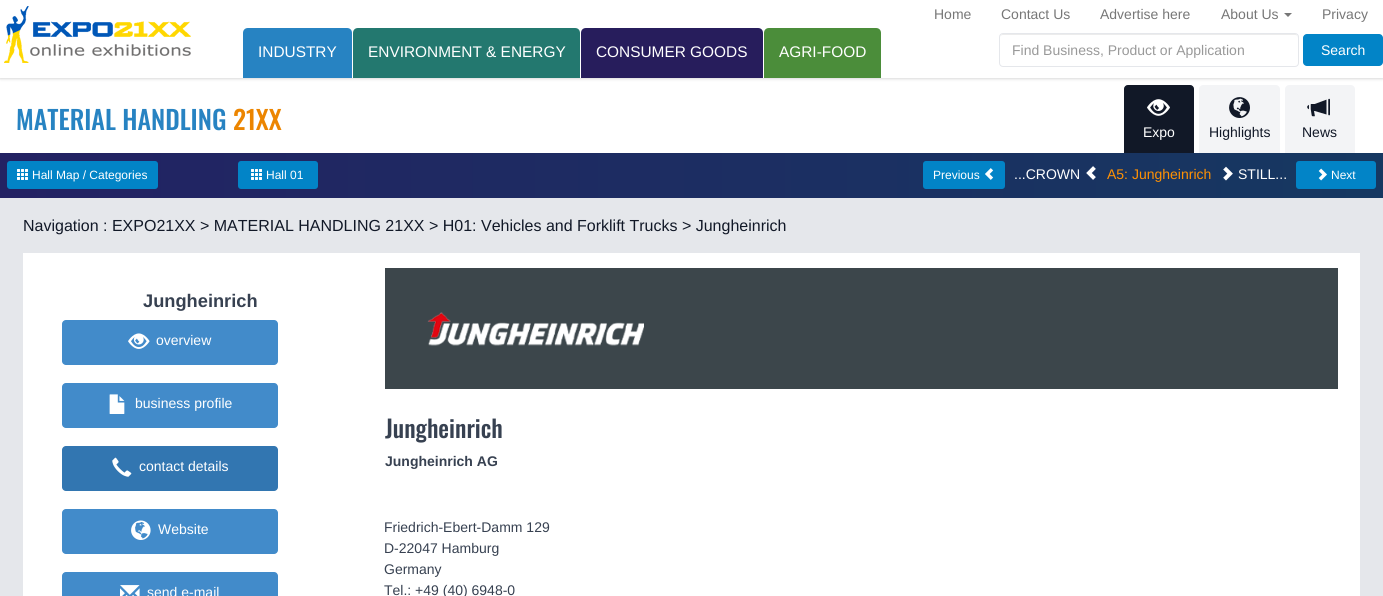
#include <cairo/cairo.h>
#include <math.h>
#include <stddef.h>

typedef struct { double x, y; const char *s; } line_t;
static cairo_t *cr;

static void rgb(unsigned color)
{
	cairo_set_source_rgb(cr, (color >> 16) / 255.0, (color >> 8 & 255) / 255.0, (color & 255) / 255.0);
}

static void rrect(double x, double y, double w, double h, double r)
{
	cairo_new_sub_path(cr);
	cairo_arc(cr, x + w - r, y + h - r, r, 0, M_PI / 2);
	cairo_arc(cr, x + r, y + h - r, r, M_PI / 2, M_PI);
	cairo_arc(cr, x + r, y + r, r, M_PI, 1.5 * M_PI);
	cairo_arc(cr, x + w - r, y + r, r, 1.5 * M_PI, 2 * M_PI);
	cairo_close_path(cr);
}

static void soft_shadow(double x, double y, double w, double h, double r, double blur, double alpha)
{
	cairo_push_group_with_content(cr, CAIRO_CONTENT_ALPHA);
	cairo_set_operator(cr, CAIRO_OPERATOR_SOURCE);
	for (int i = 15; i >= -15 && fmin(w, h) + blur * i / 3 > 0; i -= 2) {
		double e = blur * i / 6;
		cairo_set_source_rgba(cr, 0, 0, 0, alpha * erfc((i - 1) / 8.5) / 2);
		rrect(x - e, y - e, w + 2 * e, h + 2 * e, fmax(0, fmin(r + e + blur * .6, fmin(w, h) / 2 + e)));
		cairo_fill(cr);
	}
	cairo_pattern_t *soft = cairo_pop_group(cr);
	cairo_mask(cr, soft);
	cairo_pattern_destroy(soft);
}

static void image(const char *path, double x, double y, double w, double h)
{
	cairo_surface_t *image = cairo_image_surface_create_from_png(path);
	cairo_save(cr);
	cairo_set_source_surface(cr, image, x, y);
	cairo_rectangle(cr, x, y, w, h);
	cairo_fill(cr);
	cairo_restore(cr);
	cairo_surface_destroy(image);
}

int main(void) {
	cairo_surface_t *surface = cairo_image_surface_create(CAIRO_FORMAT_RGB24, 1383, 596);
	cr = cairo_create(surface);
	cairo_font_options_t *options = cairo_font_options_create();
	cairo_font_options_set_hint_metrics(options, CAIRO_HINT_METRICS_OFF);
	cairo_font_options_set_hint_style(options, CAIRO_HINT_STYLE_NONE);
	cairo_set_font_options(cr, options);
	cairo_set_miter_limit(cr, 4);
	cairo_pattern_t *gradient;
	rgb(0xe5e7eb);
	cairo_paint(cr);
	rgb(0xffffff);
	cairo_rectangle(cr, 0, 78, 1383, 75);
	cairo_fill(cr);
	rgb(0x000000);
	soft_shadow(0, 1, 1383, 78, 0, 1, 0.06);
	soft_shadow(0, 1, 1383, 78, 0, 1.5, 0.1);
	rgb(0xffffff);
	cairo_rectangle(cr, 0, 0, 1383, 78);
	cairo_fill(cr);
	image("img/1.png", 4, 6, 187, 57);
	rgb(0x777777);
	cairo_new_path(cr);
	cairo_move_to(cr, 1284, 13);
	cairo_line_to(cr, 1292, 13);
	cairo_line_to(cr, 1288, 17);
	cairo_close_path(cr);
	cairo_fill(cr);
	rgb(0x2783c2);
	cairo_new_path(cr);
	cairo_move_to(cr, 248, 28);
	cairo_line_to(cr, 347, 28);
	cairo_curve_to(cr, 350, 28, 352, 30, 352, 33);
	cairo_line_to(cr, 352, 78);
	cairo_line_to(cr, 243, 78);
	cairo_line_to(cr, 243, 33);
	cairo_curve_to(cr, 243, 30, 245, 28, 248, 28);
	cairo_close_path(cr);
	cairo_fill(cr);
	rgb(0x23786f);
	cairo_new_path(cr);
	cairo_move_to(cr, 358, 28);
	cairo_line_to(cr, 575, 28);
	cairo_curve_to(cr, 578, 28, 580, 30, 580, 33);
	cairo_line_to(cr, 580, 78);
	cairo_line_to(cr, 353, 78);
	cairo_line_to(cr, 353, 33);
	cairo_curve_to(cr, 353, 30, 355, 28, 358, 28);
	cairo_close_path(cr);
	cairo_fill(cr);
	rgb(0x271d5c);
	cairo_new_path(cr);
	cairo_move_to(cr, 586, 28);
	cairo_line_to(cr, 758, 28);
	cairo_curve_to(cr, 761, 28, 763, 30, 763, 33);
	cairo_line_to(cr, 763, 78);
	cairo_line_to(cr, 581, 78);
	cairo_line_to(cr, 581, 33);
	cairo_curve_to(cr, 581, 30, 583, 28, 586, 28);
	cairo_close_path(cr);
	cairo_fill(cr);
	rgb(0x4b8d3a);
	cairo_new_path(cr);
	cairo_move_to(cr, 769, 28);
	cairo_line_to(cr, 876, 28);
	cairo_curve_to(cr, 879, 28, 881, 30, 881, 33);
	cairo_line_to(cr, 881, 78);
	cairo_line_to(cr, 764, 78);
	cairo_line_to(cr, 764, 33);
	cairo_curve_to(cr, 764, 30, 766, 28, 769, 28);
	cairo_close_path(cr);
	cairo_fill(cr);
	rgb(0xececec);
	cairo_new_path(cr);
	cairo_move_to(cr, 1003, 35);
	cairo_line_to(cr, 1295, 35);
	cairo_curve_to(cr, 1297, 35, 1298, 36, 1298, 38);
	cairo_line_to(cr, 1297, 35);
	cairo_line_to(cr, 1296, 34);
	cairo_line_to(cr, 1003, 34);
	cairo_curve_to(cr, 1001, 34, 1000, 36, 1000, 38);
	cairo_curve_to(cr, 1000, 36, 1001, 35, 1003, 35);
	cairo_close_path(cr);
	cairo_fill(cr);
	rrect(999.5, 33.5, 299, 33, 3.5);
	rgb(0xe5e7eb);
	cairo_set_line_width(cr, 1);
	cairo_stroke(cr);
	rgb(0x0284c7);
	rrect(1303, 34, 80, 32, 4);
	cairo_fill(cr);
	rgb(0x111827);
	cairo_new_path(cr);
	cairo_move_to(cr, 1128, 85.5);
	cairo_line_to(cr, 1190, 85.5);
	cairo_curve_to(cr, 1192, 85.5, 1193.5, 87, 1193.5, 89);
	cairo_line_to(cr, 1193.5, 152.5);
	cairo_line_to(cr, 1124.5, 152.5);
	cairo_line_to(cr, 1124.5, 89);
	cairo_curve_to(cr, 1124.5, 87, 1126, 85.5, 1128, 85.5);
	cairo_close_path(cr);
	cairo_fill_preserve(cr);
	cairo_stroke(cr);
	image("img/2.png", 1147, 99, 23, 17);
	rgb(0xf3f4f6);
	cairo_new_path(cr);
	cairo_move_to(cr, 1203, 85);
	cairo_line_to(cr, 1276, 85);
	cairo_curve_to(cr, 1278, 85, 1280, 87, 1280, 89);
	cairo_line_to(cr, 1280, 153);
	cairo_line_to(cr, 1199, 153);
	cairo_line_to(cr, 1199, 89);
	cairo_curve_to(cr, 1199, 87, 1201, 85, 1203, 85);
	cairo_close_path(cr);
	cairo_fill(cr);
	image("img/3.png", 1229, 97, 21, 21);
	cairo_new_path(cr);
	cairo_move_to(cr, 1289, 85);
	cairo_line_to(cr, 1351, 85);
	cairo_curve_to(cr, 1353, 85, 1355, 87, 1355, 89);
	cairo_line_to(cr, 1355, 153);
	cairo_line_to(cr, 1285, 153);
	cairo_line_to(cr, 1285, 89);
	cairo_curve_to(cr, 1285, 87, 1287, 85, 1289, 85);
	cairo_close_path(cr);
	cairo_fill(cr);
	image("img/4.png", 1307, 98, 23, 19);
	gradient = cairo_pattern_create_linear(0, 176, 1383, 175);
	cairo_pattern_add_color_stop_rgba(gradient, 0, 0.137, 0.133, 0.388, 1);
	cairo_pattern_add_color_stop_rgba(gradient, 1, 0.086, 0.22, 0.38, 1);
	cairo_set_source(cr, gradient);
	cairo_pattern_destroy(gradient);
	cairo_rectangle(cr, 0, 153, 1383, 45);
	cairo_fill(cr);
	rgb(0x0284c7);
	rrect(7, 161, 151, 28, 3);
	cairo_fill(cr);
	image("img/5.png", 17, 169, 11, 11);
	rrect(238, 161, 80, 28, 3);
	cairo_fill(cr);
	image("img/5.png", 251, 169, 11, 11);
	rrect(923, 161, 82, 28, 3);
	cairo_fill(cr);
	image("img/6.png", 985, 168, 9, 12);
	image("img/7.png", 1086, 166, 10, 14);
	image("img/8.png", 1223, 166, 10, 15);
	rrect(1296, 161, 80, 28, 3);
	cairo_fill(cr);
	image("img/9.png", 1318, 168, 9, 13);
	rgb(0xffffff);
	cairo_rectangle(cr, 23, 253, 1337, 343);
	cairo_fill(cr);
	rgb(0x428bca);
	rrect(62, 320, 216, 45, 4);
	cairo_fill(cr);
	image("img/10.png", 128, 333, 22, 16);
	rrect(62, 383, 216, 45, 4);
	cairo_fill(cr);
	image("img/11.png", 109, 394, 16, 20);
	rgb(0x3276b1);
	rrect(62, 446, 216, 45, 4);
	cairo_fill(cr);
	image("img/12.png", 112, 457, 20, 20);
	rgb(0x428bca);
	rrect(62, 509, 216, 45, 4);
	cairo_fill(cr);
	image("img/13.png", 131, 520, 20, 20);
	rrect(62, 572, 216, 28, 4);
	cairo_fill(cr);
	image("img/14.png", 120, 585, 20, 11);
	image("img/15.png", 385, 268, 953, 121);
	cairo_select_font_face(cr, "Liberation Sans", CAIRO_FONT_SLANT_NORMAL, CAIRO_FONT_WEIGHT_NORMAL);
	cairo_set_font_size(cr, 14);
	rgb(0x777777);
	{
		static const line_t items[] = {
			{934, 19, "Home"},
			{1001, 19, "Contact Us"},
			{1100, 19, "Advertise here"},
			{1221, 19, "About Us"},
			{1322, 19, "Privacy"},
		};
		for (size_t i = 0; i < sizeof items / sizeof *items; i++) {
			cairo_move_to(cr, items[i].x, items[i].y);
			cairo_show_text(cr, items[i].s);
		}
	}
	cairo_set_font_size(cr, 15.4);
	rgb(0xffffff);
	{
		static const line_t items[] = {
			{258, 57, "INDUSTRY"},
			{368, 57, "ENVIRONMENT & ENERGY"},
			{596, 57, "CONSUMER GOODS"},
			{779, 57, "AGRI-FOOD"},
		};
		for (size_t i = 0; i < sizeof items / sizeof *items; i++) {
			cairo_move_to(cr, items[i].x, items[i].y);
			cairo_show_text(cr, items[i].s);
		}
	}
	cairo_set_font_size(cr, 14);
	rgb(0x999999);
	cairo_move_to(cr, 1012, 55);
	cairo_show_text(cr, "Find Business, Product or Application");
	rgb(0xffffff);
	cairo_move_to(cr, 1321, 55);
	cairo_show_text(cr, "Search");
	cairo_select_font_face(cr, "Oswald Medium", CAIRO_FONT_SLANT_NORMAL, CAIRO_FONT_WEIGHT_NORMAL);
	cairo_set_font_size(cr, 26);
	rgb(0x2783c2);
	cairo_move_to(cr, 16, 130);
	cairo_show_text(cr, "MATERIAL HANDLING");
	rgb(0xec8500);
	cairo_move_to(cr, 233, 130);
	cairo_show_text(cr, "21XX");
	cairo_select_font_face(cr, "Liberation Sans", CAIRO_FONT_SLANT_NORMAL, CAIRO_FONT_WEIGHT_NORMAL);
	cairo_set_font_size(cr, 14);
	rgb(0xffffff);
	cairo_move_to(cr, 1143, 137);
	cairo_show_text(cr, "Expo");
	rgb(0x111827);
	cairo_move_to(cr, 1209, 137);
	cairo_show_text(cr, "Highlights");
	cairo_move_to(cr, 1302, 137);
	cairo_show_text(cr, "News");
	cairo_set_font_size(cr, 12);
	rgb(0xffffff);
	{
		static const line_t items[] = {
			{32, 179, "Hall Map / Categories"},
			{266, 179, "Hall 01"},
			{933, 179, "Previous"},
		};
		for (size_t i = 0; i < sizeof items / sizeof *items; i++) {
			cairo_move_to(cr, items[i].x, items[i].y);
			cairo_show_text(cr, items[i].s);
		}
	}
	cairo_set_font_size(cr, 14);
	cairo_move_to(cr, 1014, 179);
	cairo_show_text(cr, "...CROWN");
	rgb(0xff9103);
	cairo_move_to(cr, 1107, 179);
	cairo_show_text(cr, "A5: Jungheinrich");
	rgb(0xffffff);
	cairo_move_to(cr, 1238, 179);
	cairo_show_text(cr, "STILL...");
	cairo_set_font_size(cr, 12);
	cairo_move_to(cr, 1331, 179);
	cairo_show_text(cr, "Next");
	cairo_set_font_size(cr, 16);
	rgb(0x111827);
	cairo_move_to(cr, 23, 231);
	cairo_show_text(cr, "Navigation : EXPO21XX > MATERIAL HANDLING 21XX > H01: Vehicles and Forklift Trucks > Jungheinrich");
	cairo_select_font_face(cr, "Liberation Sans", CAIRO_FONT_SLANT_NORMAL, CAIRO_FONT_WEIGHT_BOLD);
	cairo_set_font_size(cr, 18.25);
	rgb(0x374151);
	cairo_move_to(cr, 143, 307);
	cairo_show_text(cr, "Jungheinrich");
	cairo_select_font_face(cr, "Liberation Sans", CAIRO_FONT_SLANT_NORMAL, CAIRO_FONT_WEIGHT_NORMAL);
	cairo_set_font_size(cr, 14);
	rgb(0xffffff);
	{
		static const line_t items[] = {
			{156, 345, "overview"},
			{135, 408, "business profile"},
			{139, 471, "contact details"},
			{158, 534, "Website"},
			{147, 597, "send e-mail"},
		};
		for (size_t i = 0; i < sizeof items / sizeof *items; i++) {
			cairo_move_to(cr, items[i].x, items[i].y);
			cairo_show_text(cr, items[i].s);
		}
	}
	cairo_select_font_face(cr, "Oswald Medium", CAIRO_FONT_SLANT_NORMAL, CAIRO_FONT_WEIGHT_NORMAL);
	cairo_set_font_size(cr, 24);
	rgb(0x374151);
	cairo_move_to(cr, 385, 438);
	cairo_show_text(cr, "Jungheinrich");
	cairo_select_font_face(cr, "Liberation Sans", CAIRO_FONT_SLANT_NORMAL, CAIRO_FONT_WEIGHT_BOLD);
	cairo_set_font_size(cr, 14);
	cairo_move_to(cr, 385, 466);
	cairo_show_text(cr, "Jungheinrich AG");
	cairo_select_font_face(cr, "Liberation Sans", CAIRO_FONT_SLANT_NORMAL, CAIRO_FONT_WEIGHT_NORMAL);
	{
		static const line_t items[] = {
			{384, 532, "Friedrich-Ebert-Damm 129"},
			{384, 553, "D-22047 Hamburg"},
			{384, 574, "Germany"},
			{384, 595, "Tel.: +49 (40) 6948-0"},
		};
		for (size_t i = 0; i < sizeof items / sizeof *items; i++) {
			cairo_move_to(cr, items[i].x, items[i].y);
			cairo_show_text(cr, items[i].s);
		}
	}
	cairo_surface_write_to_png(surface, "page.png");
	cairo_font_options_destroy(options);
	cairo_destroy(cr);
	cairo_surface_destroy(surface);
	return 0;
}
